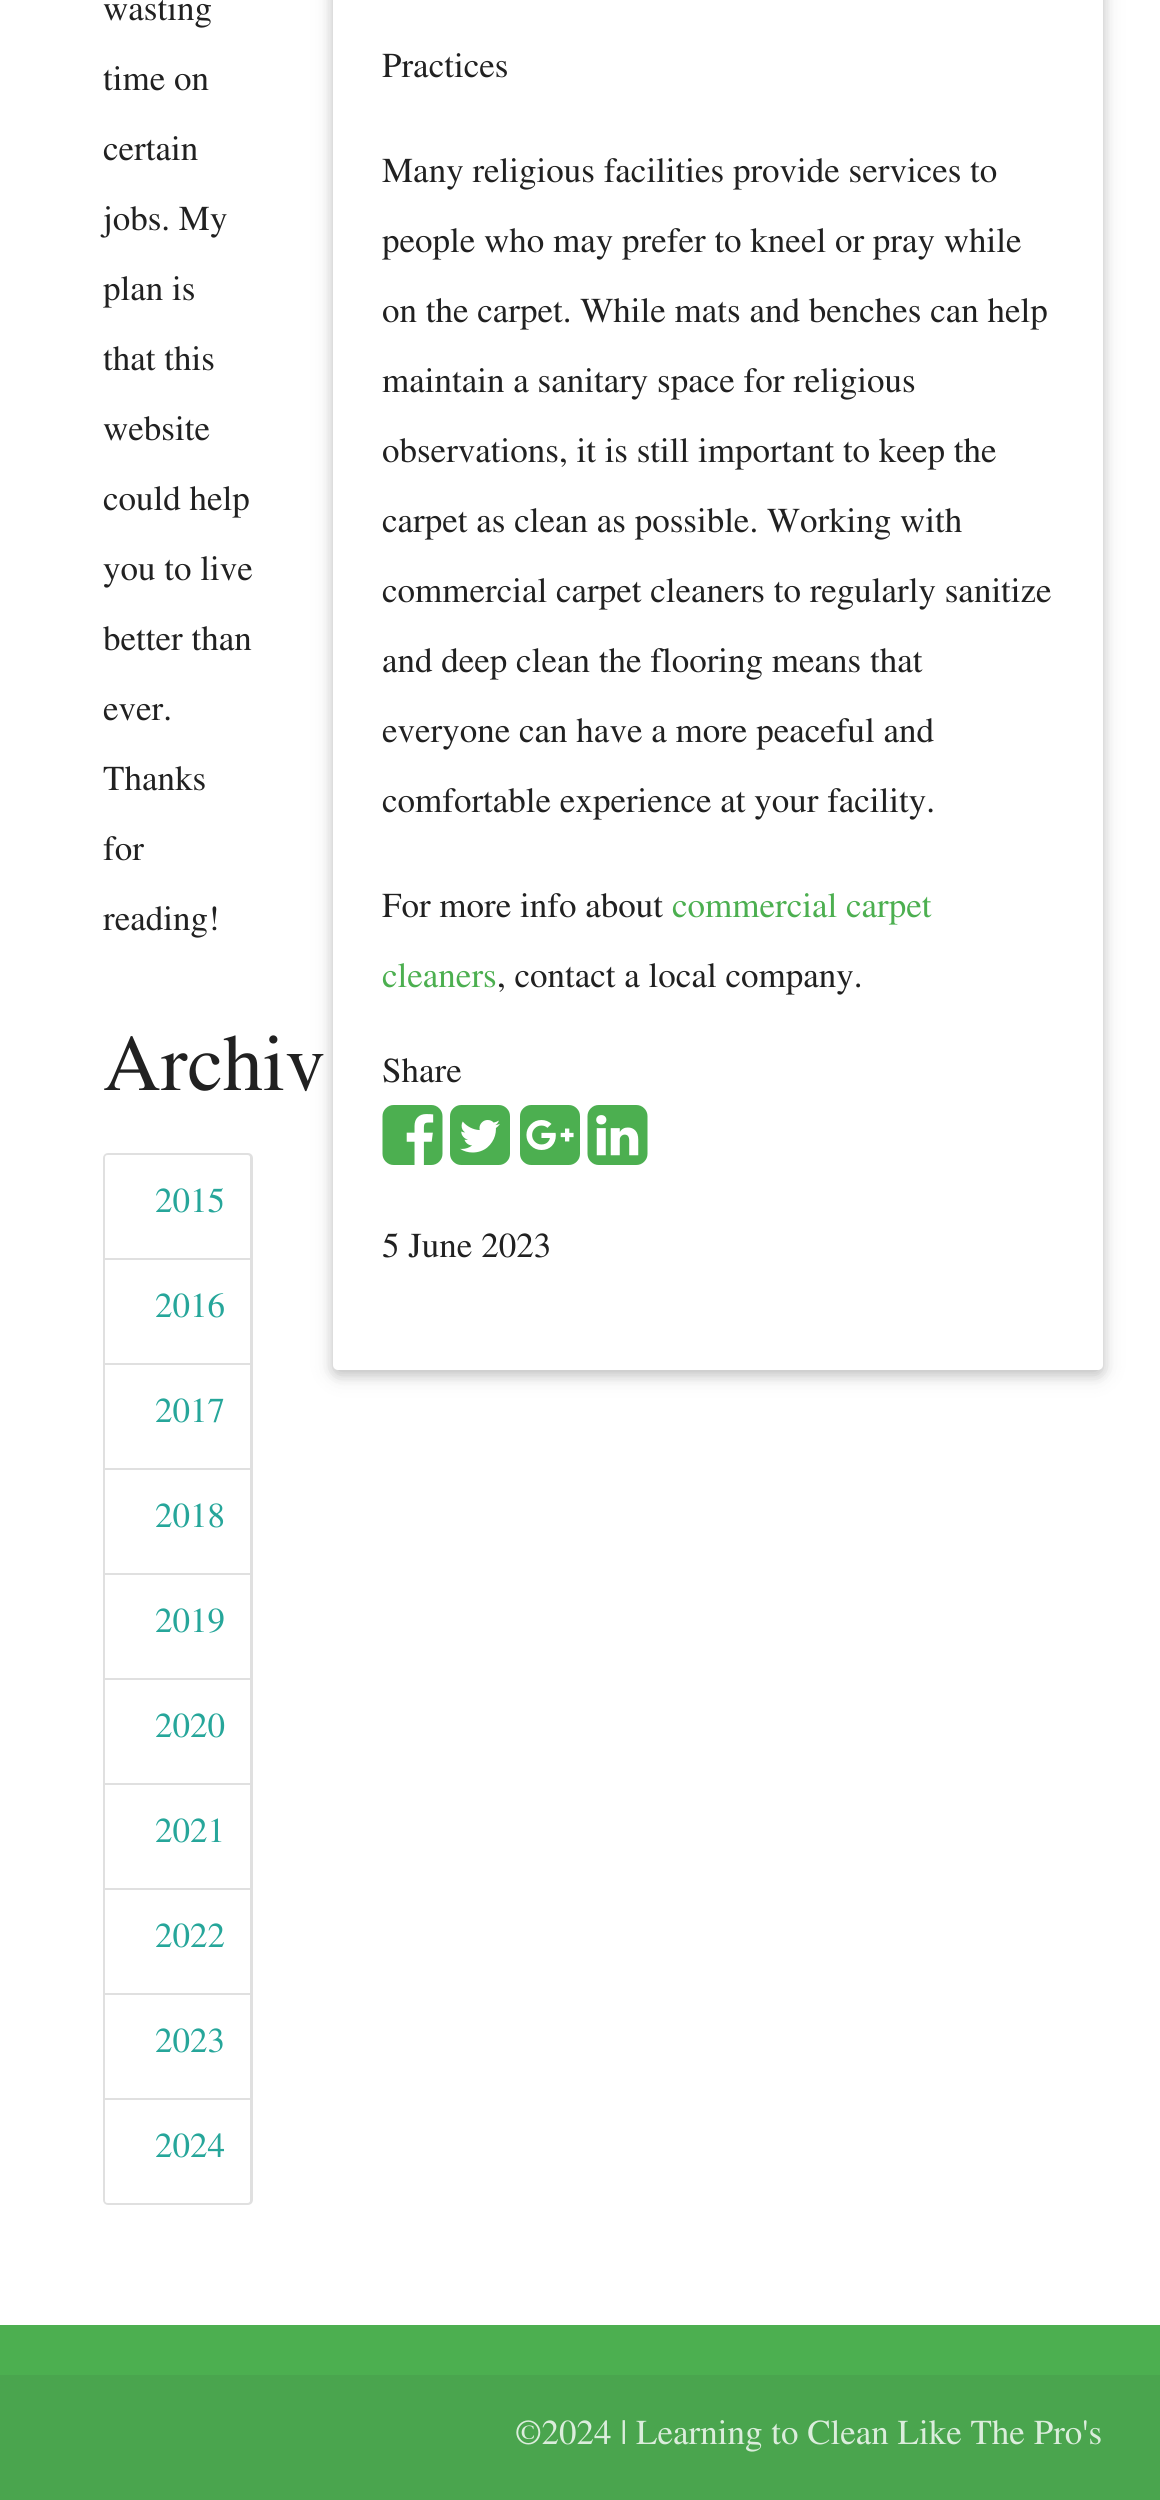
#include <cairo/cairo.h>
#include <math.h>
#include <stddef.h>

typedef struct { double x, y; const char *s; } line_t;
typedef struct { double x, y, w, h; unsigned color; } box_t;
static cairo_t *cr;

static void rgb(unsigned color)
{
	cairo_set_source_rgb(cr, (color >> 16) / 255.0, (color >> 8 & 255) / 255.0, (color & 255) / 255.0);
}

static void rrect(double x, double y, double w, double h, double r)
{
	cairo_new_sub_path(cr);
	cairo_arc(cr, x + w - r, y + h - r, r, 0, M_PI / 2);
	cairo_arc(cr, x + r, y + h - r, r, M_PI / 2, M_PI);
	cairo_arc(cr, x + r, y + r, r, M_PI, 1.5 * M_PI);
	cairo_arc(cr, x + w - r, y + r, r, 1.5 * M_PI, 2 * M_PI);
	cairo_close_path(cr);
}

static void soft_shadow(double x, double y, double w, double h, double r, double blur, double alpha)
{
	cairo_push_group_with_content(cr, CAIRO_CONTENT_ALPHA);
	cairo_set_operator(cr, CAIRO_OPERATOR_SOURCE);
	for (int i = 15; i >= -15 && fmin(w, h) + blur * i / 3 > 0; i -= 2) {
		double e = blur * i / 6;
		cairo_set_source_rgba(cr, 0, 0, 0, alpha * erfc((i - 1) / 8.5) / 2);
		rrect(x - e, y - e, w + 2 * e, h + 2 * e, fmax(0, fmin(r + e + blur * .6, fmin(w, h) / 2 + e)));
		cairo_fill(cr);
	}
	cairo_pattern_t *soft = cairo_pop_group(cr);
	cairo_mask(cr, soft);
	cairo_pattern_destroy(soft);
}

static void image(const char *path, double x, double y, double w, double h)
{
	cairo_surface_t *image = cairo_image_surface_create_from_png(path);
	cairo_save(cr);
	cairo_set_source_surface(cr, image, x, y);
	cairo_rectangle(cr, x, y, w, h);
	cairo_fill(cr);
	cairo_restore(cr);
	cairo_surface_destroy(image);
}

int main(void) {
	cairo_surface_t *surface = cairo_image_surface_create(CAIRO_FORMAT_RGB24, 1160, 2500);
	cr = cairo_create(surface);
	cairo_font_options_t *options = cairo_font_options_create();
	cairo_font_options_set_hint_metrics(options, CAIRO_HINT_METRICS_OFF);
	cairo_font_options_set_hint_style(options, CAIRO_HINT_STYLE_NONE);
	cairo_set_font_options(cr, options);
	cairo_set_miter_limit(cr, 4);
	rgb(0xffffff);
	cairo_paint(cr);
	rrect(104.5, 1154.5, 147, 1049, 3.5);
	rgb(0xe0e0e0);
	cairo_set_line_width(cr, 3);
	cairo_stroke(cr);
	rgb(0xffffff);
	cairo_new_path(cr);
	cairo_move_to(cr, 107.5, 1155);
	cairo_line_to(cr, 247.5, 1155);
	cairo_curve_to(cr, 249, 1155, 250, 1156, 250, 1157.5);
	cairo_line_to(cr, 250, 1260);
	cairo_line_to(cr, 105, 1260);
	cairo_line_to(cr, 105, 1157.5);
	cairo_curve_to(cr, 105, 1156, 106, 1155, 107.5, 1155);
	cairo_close_path(cr);
	cairo_fill(cr);
	{
		static const box_t items[] = {
			{105, 1258, 145, 2, 0xe0e0e0},
			{105, 1260, 1, 103, 0xffffff},
			{105, 1363, 145, 2, 0xe0e0e0},
			{105, 1365, 1, 103, 0xffffff},
			{105, 1468, 145, 2, 0xe0e0e0},
			{105, 1470, 1, 103, 0xffffff},
			{105, 1573, 145, 2, 0xe0e0e0},
			{105, 1575, 1, 103, 0xffffff},
			{105, 1678, 145, 2, 0xe0e0e0},
			{105, 1680, 1, 103, 0xffffff},
			{105, 1783, 145, 2, 0xe0e0e0},
			{105, 1785, 1, 103, 0xffffff},
			{105, 1888, 145, 2, 0xe0e0e0},
			{105, 1890, 1, 103, 0xffffff},
			{105, 1993, 145, 2, 0xe0e0e0},
			{105, 1995, 1, 103, 0xffffff},
			{105, 2098, 145, 2, 0xe0e0e0},
		};
		for (size_t i = 0; i < sizeof items / sizeof *items; i++) {
			rgb(items[i].color);
			cairo_rectangle(cr, items[i].x, items[i].y, items[i].w, items[i].h);
			cairo_fill(cr);
		}
	}
	rgb(0xffffff);
	cairo_new_path(cr);
	cairo_move_to(cr, 105, 2100);
	cairo_line_to(cr, 250, 2100);
	cairo_line_to(cr, 250, 2200.5);
	cairo_curve_to(cr, 250, 2202, 249, 2203, 247.5, 2203);
	cairo_line_to(cr, 107.5, 2203);
	cairo_curve_to(cr, 106, 2203, 105, 2202, 105, 2200.5);
	cairo_close_path(cr);
	cairo_fill(cr);
	rgb(0x000000);
	soft_shadow(333, -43, 770, 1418, 5, 12.5, 0.12);
	soft_shadow(333, -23, 770, 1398, 5, 6, 0.16);
	rgb(0xffffff);
	rrect(333, -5, 770, 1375, 5);
	cairo_fill(cr);
	image("img/1.png", 382, 1105, 61, 60);
	image("img/2.png", 450, 1105, 60, 60);
	image("img/3.png", 520, 1105, 60, 60);
	image("img/4.png", 587, 1105, 61, 60);
	rgb(0x4caf50);
	cairo_rectangle(cr, 0, 2325, 1160, 50);
	cairo_fill(cr);
	rgb(0x4aa54e);
	cairo_rectangle(cr, 0, 2375, 1160, 125);
	cairo_fill(cr);
	cairo_select_font_face(cr, "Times", CAIRO_FONT_SLANT_NORMAL, CAIRO_FONT_WEIGHT_NORMAL);
	cairo_set_font_size(cr, 35);
	rgb(0x212121);
	{
		static const line_t items[] = {
			{103, 20, "wasting"},
			{103, 90, "time on"},
			{103, 160, "certain"},
			{103, 230, "jobs. My"},
			{103, 300, "plan is"},
			{103, 370, "that this"},
			{103, 440, "website"},
			{103, 510, "could help"},
			{103, 580, "you to live"},
			{103, 650, "better than"},
			{103, 720, "ever."},
			{103, 790, "Thanks"},
			{103, 860, "for"},
			{103, 930, "reading!"},
		};
		for (size_t i = 0; i < sizeof items / sizeof *items; i++) {
			cairo_move_to(cr, items[i].x, items[i].y);
			cairo_show_text(cr, items[i].s);
		}
	}
	cairo_set_font_size(cr, 80);
	cairo_move_to(cr, 103, 1090);
	cairo_show_text(cr, "Archiv");
	cairo_set_font_size(cr, 35);
	rgb(0x26a69a);
	{
		static const line_t items[] = {
			{155, 1212, "2015"},
			{155, 1317, "2016"},
			{155, 1422, "2017"},
			{155, 1527, "2018"},
			{155, 1632, "2019"},
			{155, 1737, "2020"},
			{155, 1842, "2021"},
			{155, 1947, "2022"},
			{155, 2052, "2023"},
			{155, 2157, "2024"},
		};
		for (size_t i = 0; i < sizeof items / sizeof *items; i++) {
			cairo_move_to(cr, items[i].x, items[i].y);
			cairo_show_text(cr, items[i].s);
		}
	}
	rgb(0x212121);
	{
		static const line_t items[] = {
			{382, 77, "Practices"},
			{382, 182, "Many religious facilities provide services to"},
			{382, 252, "people who may prefer to kneel or pray while"},
			{382, 322, "on the carpet. While mats and benches can help"},
			{382, 392, "maintain a sanitary space for religious"},
			{382, 462, "observations, it is still important to keep the"},
			{382, 532, "carpet as clean as possible. Working with"},
			{382, 602, "commercial carpet cleaners to regularly sanitize"},
			{382, 672, "and deep clean the flooring means that"},
			{382, 742, "everyone can have a more peaceful and"},
			{382, 812, "comfortable experience at your facility."},
			{382, 917, "For more info about"},
		};
		for (size_t i = 0; i < sizeof items / sizeof *items; i++) {
			cairo_move_to(cr, items[i].x, items[i].y);
			cairo_show_text(cr, items[i].s);
		}
	}
	rgb(0x4caf50);
	cairo_move_to(cr, 672, 917);
	cairo_show_text(cr, "commercial carpet");
	cairo_move_to(cr, 382, 987);
	cairo_show_text(cr, "cleaners");
	rgb(0x212121);
	{
		static const line_t items[] = {
			{497, 987, ", contact a local company."},
			{382, 1082, "Share"},
			{382, 1257, "5 June 2023"},
		};
		for (size_t i = 0; i < sizeof items / sizeof *items; i++) {
			cairo_move_to(cr, items[i].x, items[i].y);
			cairo_show_text(cr, items[i].s);
		}
	}
	rgb(0xdbeddc);
	cairo_move_to(cr, 515, 2444);
	cairo_show_text(cr, "©2024 | Learning to Clean Like The Pro's");
	cairo_surface_write_to_png(surface, "page.png");
	cairo_font_options_destroy(options);
	cairo_destroy(cr);
	cairo_surface_destroy(surface);
	return 0;
}
